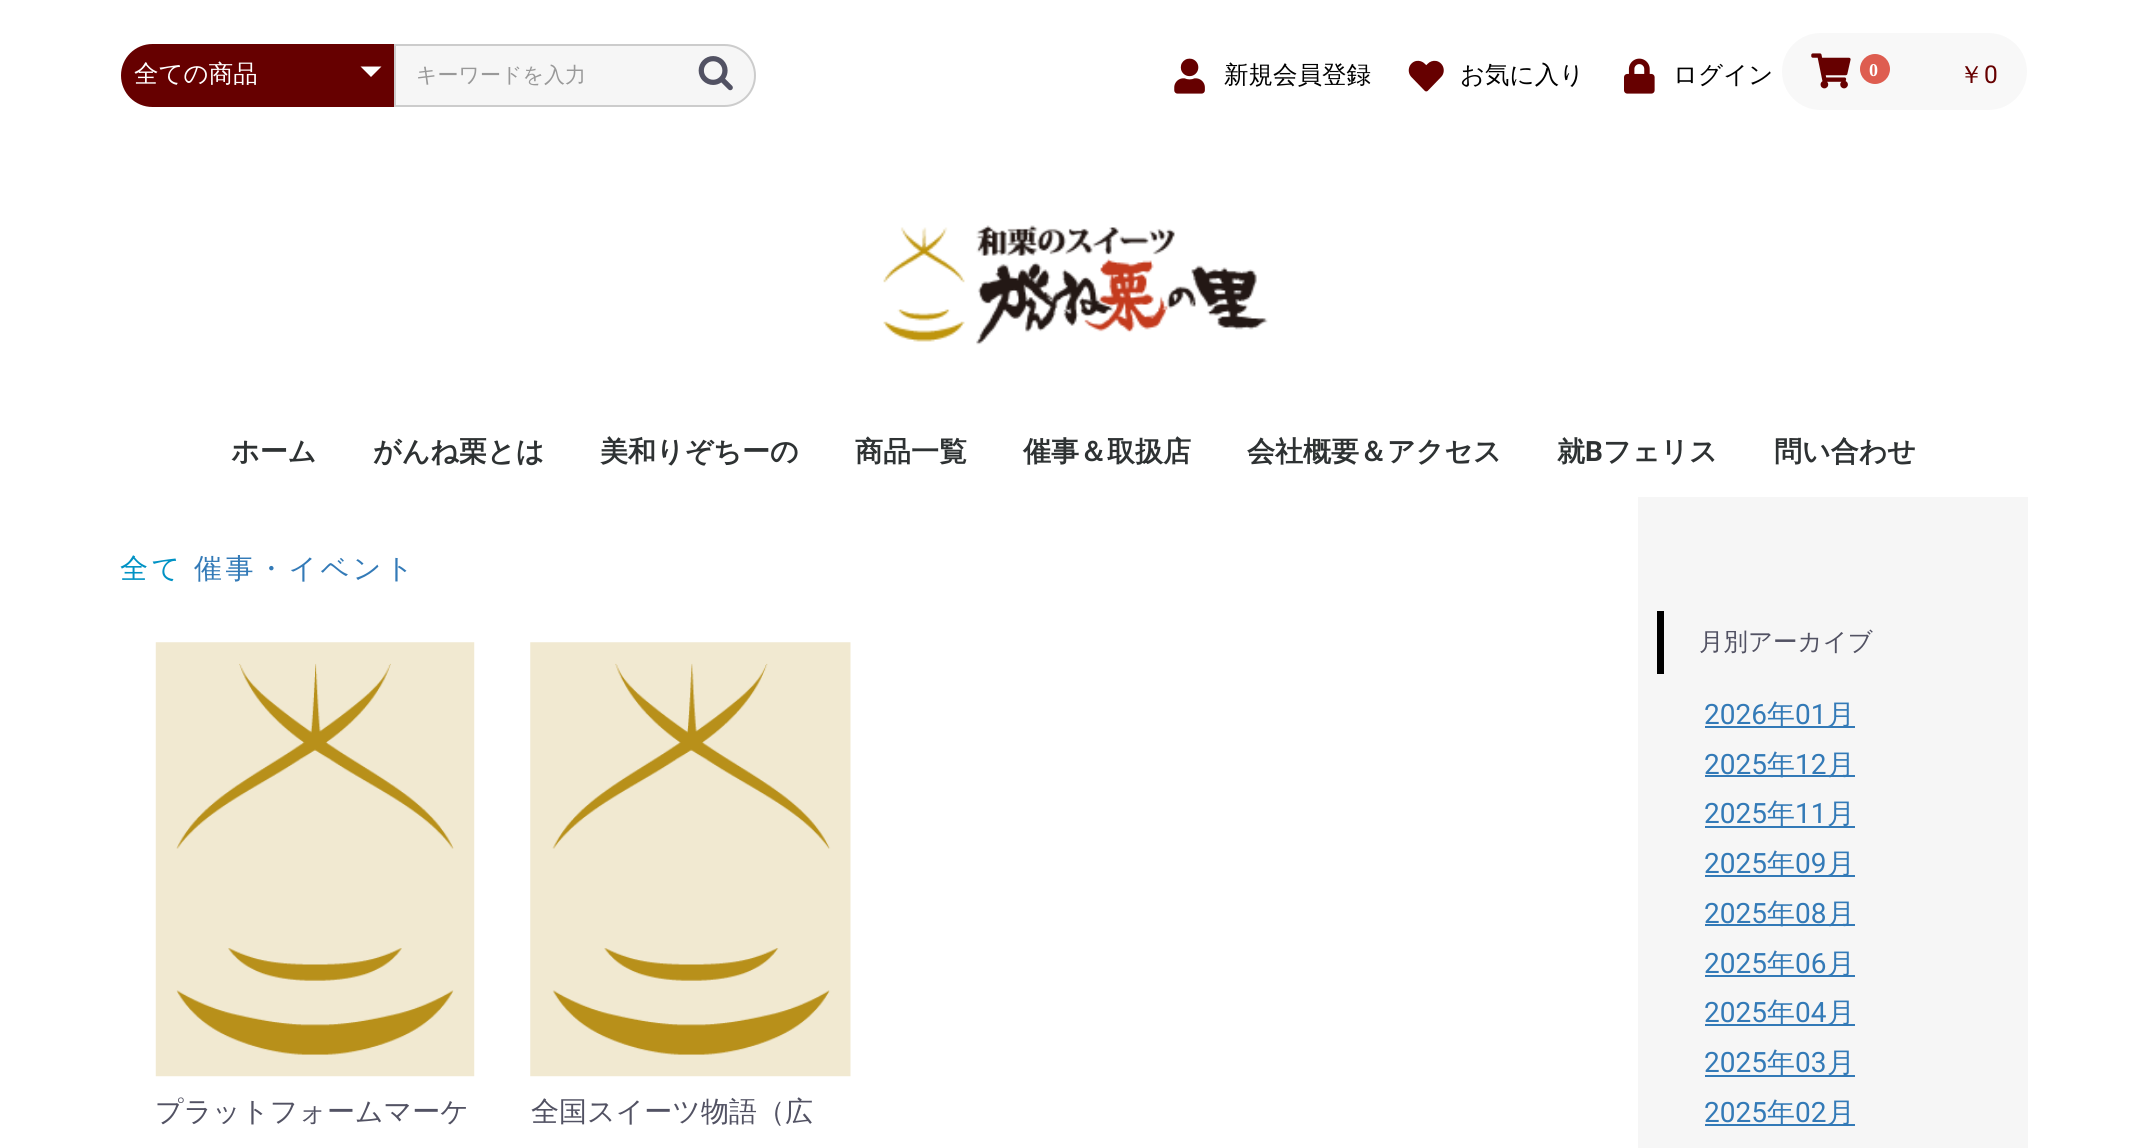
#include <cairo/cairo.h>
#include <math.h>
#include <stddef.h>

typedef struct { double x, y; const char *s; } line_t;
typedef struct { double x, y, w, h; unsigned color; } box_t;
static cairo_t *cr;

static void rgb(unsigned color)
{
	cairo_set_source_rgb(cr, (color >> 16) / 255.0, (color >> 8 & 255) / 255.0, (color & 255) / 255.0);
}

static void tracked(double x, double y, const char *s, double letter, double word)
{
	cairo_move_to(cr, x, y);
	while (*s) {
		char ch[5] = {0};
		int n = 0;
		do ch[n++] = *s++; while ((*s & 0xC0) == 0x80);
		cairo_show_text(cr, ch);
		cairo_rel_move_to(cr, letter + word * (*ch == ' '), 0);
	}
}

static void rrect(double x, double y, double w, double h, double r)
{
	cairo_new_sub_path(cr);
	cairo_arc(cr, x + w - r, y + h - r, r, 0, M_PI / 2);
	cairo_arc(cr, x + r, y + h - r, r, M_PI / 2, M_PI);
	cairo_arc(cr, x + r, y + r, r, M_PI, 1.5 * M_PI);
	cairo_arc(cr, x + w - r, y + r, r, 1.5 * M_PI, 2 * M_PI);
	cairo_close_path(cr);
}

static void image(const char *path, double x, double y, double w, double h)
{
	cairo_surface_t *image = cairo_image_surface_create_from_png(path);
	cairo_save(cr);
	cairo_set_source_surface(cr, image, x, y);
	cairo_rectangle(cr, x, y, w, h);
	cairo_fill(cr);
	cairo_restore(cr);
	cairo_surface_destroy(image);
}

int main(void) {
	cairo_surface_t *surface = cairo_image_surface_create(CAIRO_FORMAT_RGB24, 2146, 1148);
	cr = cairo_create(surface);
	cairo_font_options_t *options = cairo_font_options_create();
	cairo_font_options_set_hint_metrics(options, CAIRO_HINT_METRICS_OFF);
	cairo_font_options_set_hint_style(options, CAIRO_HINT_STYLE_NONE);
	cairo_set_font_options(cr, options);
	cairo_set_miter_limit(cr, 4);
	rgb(0xffffff);
	cairo_paint(cr);
	rgb(0x660000);
	cairo_new_path(cr);
	cairo_move_to(cr, 152.5, 44);
	cairo_line_to(cr, 394, 44);
	cairo_line_to(cr, 394, 107);
	cairo_line_to(cr, 152.5, 107);
	cairo_curve_to(cr, 135, 107, 121, 93, 121, 75.5);
	cairo_curve_to(cr, 121, 58, 135, 44, 152.5, 44);
	cairo_close_path(cr);
	cairo_fill(cr);
	rgb(0xffffff);
	cairo_new_path(cr);
	cairo_move_to(cr, 360.5, 66.5);
	cairo_line_to(cr, 381.5, 66.5);
	cairo_line_to(cr, 371, 77);
	cairo_close_path(cr);
	cairo_fill(cr);
	rgb(0xf6f6f6);
	cairo_new_path(cr);
	cairo_move_to(cr, 395, 45);
	cairo_line_to(cr, 724.5, 45);
	cairo_curve_to(cr, 741.5, 45, 755, 58.5, 755, 75.5);
	cairo_curve_to(cr, 755, 92.5, 741.5, 106, 724.5, 106);
	cairo_line_to(cr, 395, 106);
	cairo_close_path(cr);
	cairo_fill_preserve(cr);
	rgb(0xcccccc);
	cairo_stroke(cr);
	image("img/1.png", 698, 56, 35, 35);
	image("img/2.png", 1174, 58, 31, 36);
	image("img/3.png", 1408, 60, 36, 32);
	image("img/4.png", 1624, 58, 31, 36);
	rgb(0xf8f8f8);
	rrect(1782, 33, 245, 77, 38.5);
	cairo_fill(cr);
	image("img/5.png", 1811, 53, 40, 36);
	rgb(0xde5d50);
	cairo_arc(cr, 1875, 69, 15, 0, 2 * M_PI);
	cairo_fill(cr);
	image("img/6.png", 883, 225, 385, 120);
	image("img/7.png", 155, 642, 320, 435);
	image("img/8.png", 530, 642, 321, 435);
	{
		static const box_t items[] = {
			{1638, 497, 390, 651, 0xf6f6f6},
			{1657, 611, 7, 63, 0x000000},
			{1705, 726, 150, 2, 0x337ab7},
			{1705, 775, 150, 2, 0x337ab7},
			{1705, 826, 150, 2, 0x337ab7},
			{1705, 875, 150, 2, 0x337ab7},
			{1705, 924, 150, 2, 0x337ab7},
			{1705, 975, 150, 2, 0x337ab7},
			{1705, 1024, 150, 2, 0x337ab7},
			{1705, 1075, 150, 2, 0x337ab7},
			{1705, 1124, 150, 2, 0x337ab7},
		};
		for (size_t i = 0; i < sizeof items / sizeof *items; i++) {
			rgb(items[i].color);
			cairo_rectangle(cr, items[i].x, items[i].y, items[i].w, items[i].h);
			cairo_fill(cr);
		}
	}
	cairo_select_font_face(cr, "WenQuanYi Zen Hei Medium", CAIRO_FONT_SLANT_NORMAL, CAIRO_FONT_WEIGHT_NORMAL);
	cairo_set_font_size(cr, 24.5);
	rgb(0xffffff);
	cairo_move_to(cr, 134, 82);
	cairo_show_text(cr, "全ての商品");
	cairo_set_font_size(cr, 21);
	rgb(0x999999);
	cairo_move_to(cr, 416, 82);
	cairo_show_text(cr, "キーワードを入力");
	cairo_set_font_size(cr, 24.5);
	rgb(0x000000);
	{
		static const line_t items[] = {
			{1224, 83, "新規会員登録"},
			{1460, 83, "お気に入り"},
			{1673, 83, "ログイン"},
		};
		for (size_t i = 0; i < sizeof items / sizeof *items; i++) {
			cairo_move_to(cr, items[i].x, items[i].y);
			cairo_show_text(cr, items[i].s);
		}
	}
	cairo_select_font_face(cr, "Liberation Serif", CAIRO_FONT_SLANT_NORMAL, CAIRO_FONT_WEIGHT_BOLD);
	cairo_set_font_size(cr, 18);
	rgb(0xffffff);
	cairo_move_to(cr, 1869, 76);
	cairo_show_text(cr, "0");
	cairo_select_font_face(cr, "WenQuanYi Zen Hei Medium", CAIRO_FONT_SLANT_NORMAL, CAIRO_FONT_WEIGHT_NORMAL);
	cairo_set_font_size(cr, 24.5);
	rgb(0x660000);
	cairo_move_to(cr, 1959, 83);
	cairo_show_text(cr, "￥");
	cairo_select_font_face(cr, "Roboto", CAIRO_FONT_SLANT_NORMAL, CAIRO_FONT_WEIGHT_NORMAL);
	cairo_move_to(cr, 1984, 83);
	cairo_show_text(cr, "0");
	cairo_select_font_face(cr, "WenQuanYi Zen Hei", CAIRO_FONT_SLANT_NORMAL, CAIRO_FONT_WEIGHT_BOLD);
	cairo_set_font_size(cr, 28);
	rgb(0x2e3233);
	{
		static const line_t items[] = {
			{231, 461, "ホーム"},
			{373, 461, "がんね栗とは"},
			{600, 461, "美和りぞちーの"},
			{855, 461, "商品一覧"},
			{1023, 461, "催事＆取扱店"},
			{1247, 461, "会社概要＆アクセス"},
			{1557, 461, "就"},
		};
		for (size_t i = 0; i < sizeof items / sizeof *items; i++) {
			cairo_move_to(cr, items[i].x, items[i].y);
			cairo_show_text(cr, items[i].s);
		}
	}
	cairo_select_font_face(cr, "Roboto", CAIRO_FONT_SLANT_NORMAL, CAIRO_FONT_WEIGHT_BOLD);
	cairo_move_to(cr, 1585, 461);
	cairo_show_text(cr, "B");
	cairo_select_font_face(cr, "WenQuanYi Zen Hei", CAIRO_FONT_SLANT_NORMAL, CAIRO_FONT_WEIGHT_BOLD);
	cairo_move_to(cr, 1603, 461);
	cairo_show_text(cr, "フェリス");
	cairo_move_to(cr, 1774, 461);
	cairo_show_text(cr, "問い合わせ");
	cairo_select_font_face(cr, "WenQuanYi Zen Hei Medium", CAIRO_FONT_SLANT_NORMAL, CAIRO_FONT_WEIGHT_NORMAL);
	rgb(0x0092c4);
	tracked(120, 578, "全て", 3.5, 0);
	rgb(0x337ab7);
	tracked(194, 578, "催事・イベント", 3.5, 0);
	rgb(0x525263);
	cairo_move_to(cr, 155, 1121);
	cairo_show_text(cr, "プラットフォームマーケ");
	cairo_move_to(cr, 531, 1121);
	cairo_show_text(cr, "全国スイーツ物語（広");
	cairo_set_font_size(cr, 24.5);
	cairo_move_to(cr, 1699, 650);
	cairo_show_text(cr, "月別アーカイブ");
	cairo_select_font_face(cr, "Roboto", CAIRO_FONT_SLANT_NORMAL, CAIRO_FONT_WEIGHT_NORMAL);
	cairo_set_font_size(cr, 28);
	rgb(0x337ab7);
	cairo_move_to(cr, 1704, 724);
	cairo_show_text(cr, "2026");
	cairo_select_font_face(cr, "WenQuanYi Zen Hei Medium", CAIRO_FONT_SLANT_NORMAL, CAIRO_FONT_WEIGHT_NORMAL);
	cairo_move_to(cr, 1767, 724);
	cairo_show_text(cr, "年");
	cairo_select_font_face(cr, "Roboto", CAIRO_FONT_SLANT_NORMAL, CAIRO_FONT_WEIGHT_NORMAL);
	cairo_move_to(cr, 1795, 724);
	cairo_show_text(cr, "01");
	cairo_select_font_face(cr, "WenQuanYi Zen Hei Medium", CAIRO_FONT_SLANT_NORMAL, CAIRO_FONT_WEIGHT_NORMAL);
	cairo_move_to(cr, 1827, 724);
	cairo_show_text(cr, "月");
	cairo_select_font_face(cr, "Roboto", CAIRO_FONT_SLANT_NORMAL, CAIRO_FONT_WEIGHT_NORMAL);
	cairo_move_to(cr, 1704, 774);
	cairo_show_text(cr, "2025");
	cairo_select_font_face(cr, "WenQuanYi Zen Hei Medium", CAIRO_FONT_SLANT_NORMAL, CAIRO_FONT_WEIGHT_NORMAL);
	cairo_move_to(cr, 1767, 774);
	cairo_show_text(cr, "年");
	cairo_select_font_face(cr, "Roboto", CAIRO_FONT_SLANT_NORMAL, CAIRO_FONT_WEIGHT_NORMAL);
	cairo_move_to(cr, 1795, 774);
	cairo_show_text(cr, "12");
	cairo_select_font_face(cr, "WenQuanYi Zen Hei Medium", CAIRO_FONT_SLANT_NORMAL, CAIRO_FONT_WEIGHT_NORMAL);
	cairo_move_to(cr, 1827, 774);
	cairo_show_text(cr, "月");
	cairo_select_font_face(cr, "Roboto", CAIRO_FONT_SLANT_NORMAL, CAIRO_FONT_WEIGHT_NORMAL);
	cairo_move_to(cr, 1704, 823);
	cairo_show_text(cr, "2025");
	cairo_select_font_face(cr, "WenQuanYi Zen Hei Medium", CAIRO_FONT_SLANT_NORMAL, CAIRO_FONT_WEIGHT_NORMAL);
	cairo_move_to(cr, 1767, 823);
	cairo_show_text(cr, "年");
	cairo_select_font_face(cr, "Roboto", CAIRO_FONT_SLANT_NORMAL, CAIRO_FONT_WEIGHT_NORMAL);
	cairo_move_to(cr, 1795, 823);
	cairo_show_text(cr, "11");
	cairo_select_font_face(cr, "WenQuanYi Zen Hei Medium", CAIRO_FONT_SLANT_NORMAL, CAIRO_FONT_WEIGHT_NORMAL);
	cairo_move_to(cr, 1827, 823);
	cairo_show_text(cr, "月");
	cairo_select_font_face(cr, "Roboto", CAIRO_FONT_SLANT_NORMAL, CAIRO_FONT_WEIGHT_NORMAL);
	cairo_move_to(cr, 1704, 873);
	cairo_show_text(cr, "2025");
	cairo_select_font_face(cr, "WenQuanYi Zen Hei Medium", CAIRO_FONT_SLANT_NORMAL, CAIRO_FONT_WEIGHT_NORMAL);
	cairo_move_to(cr, 1767, 873);
	cairo_show_text(cr, "年");
	cairo_select_font_face(cr, "Roboto", CAIRO_FONT_SLANT_NORMAL, CAIRO_FONT_WEIGHT_NORMAL);
	cairo_move_to(cr, 1795, 873);
	cairo_show_text(cr, "09");
	cairo_select_font_face(cr, "WenQuanYi Zen Hei Medium", CAIRO_FONT_SLANT_NORMAL, CAIRO_FONT_WEIGHT_NORMAL);
	cairo_move_to(cr, 1827, 873);
	cairo_show_text(cr, "月");
	cairo_select_font_face(cr, "Roboto", CAIRO_FONT_SLANT_NORMAL, CAIRO_FONT_WEIGHT_NORMAL);
	cairo_move_to(cr, 1704, 923);
	cairo_show_text(cr, "2025");
	cairo_select_font_face(cr, "WenQuanYi Zen Hei Medium", CAIRO_FONT_SLANT_NORMAL, CAIRO_FONT_WEIGHT_NORMAL);
	cairo_move_to(cr, 1767, 923);
	cairo_show_text(cr, "年");
	cairo_select_font_face(cr, "Roboto", CAIRO_FONT_SLANT_NORMAL, CAIRO_FONT_WEIGHT_NORMAL);
	cairo_move_to(cr, 1795, 923);
	cairo_show_text(cr, "08");
	cairo_select_font_face(cr, "WenQuanYi Zen Hei Medium", CAIRO_FONT_SLANT_NORMAL, CAIRO_FONT_WEIGHT_NORMAL);
	cairo_move_to(cr, 1827, 923);
	cairo_show_text(cr, "月");
	cairo_select_font_face(cr, "Roboto", CAIRO_FONT_SLANT_NORMAL, CAIRO_FONT_WEIGHT_NORMAL);
	cairo_move_to(cr, 1704, 973);
	cairo_show_text(cr, "2025");
	cairo_select_font_face(cr, "WenQuanYi Zen Hei Medium", CAIRO_FONT_SLANT_NORMAL, CAIRO_FONT_WEIGHT_NORMAL);
	cairo_move_to(cr, 1767, 973);
	cairo_show_text(cr, "年");
	cairo_select_font_face(cr, "Roboto", CAIRO_FONT_SLANT_NORMAL, CAIRO_FONT_WEIGHT_NORMAL);
	cairo_move_to(cr, 1795, 973);
	cairo_show_text(cr, "06");
	cairo_select_font_face(cr, "WenQuanYi Zen Hei Medium", CAIRO_FONT_SLANT_NORMAL, CAIRO_FONT_WEIGHT_NORMAL);
	cairo_move_to(cr, 1827, 973);
	cairo_show_text(cr, "月");
	cairo_select_font_face(cr, "Roboto", CAIRO_FONT_SLANT_NORMAL, CAIRO_FONT_WEIGHT_NORMAL);
	cairo_move_to(cr, 1704, 1022);
	cairo_show_text(cr, "2025");
	cairo_select_font_face(cr, "WenQuanYi Zen Hei Medium", CAIRO_FONT_SLANT_NORMAL, CAIRO_FONT_WEIGHT_NORMAL);
	cairo_move_to(cr, 1767, 1022);
	cairo_show_text(cr, "年");
	cairo_select_font_face(cr, "Roboto", CAIRO_FONT_SLANT_NORMAL, CAIRO_FONT_WEIGHT_NORMAL);
	cairo_move_to(cr, 1795, 1022);
	cairo_show_text(cr, "04");
	cairo_select_font_face(cr, "WenQuanYi Zen Hei Medium", CAIRO_FONT_SLANT_NORMAL, CAIRO_FONT_WEIGHT_NORMAL);
	cairo_move_to(cr, 1827, 1022);
	cairo_show_text(cr, "月");
	cairo_select_font_face(cr, "Roboto", CAIRO_FONT_SLANT_NORMAL, CAIRO_FONT_WEIGHT_NORMAL);
	cairo_move_to(cr, 1704, 1072);
	cairo_show_text(cr, "2025");
	cairo_select_font_face(cr, "WenQuanYi Zen Hei Medium", CAIRO_FONT_SLANT_NORMAL, CAIRO_FONT_WEIGHT_NORMAL);
	cairo_move_to(cr, 1767, 1072);
	cairo_show_text(cr, "年");
	cairo_select_font_face(cr, "Roboto", CAIRO_FONT_SLANT_NORMAL, CAIRO_FONT_WEIGHT_NORMAL);
	cairo_move_to(cr, 1795, 1072);
	cairo_show_text(cr, "03");
	cairo_select_font_face(cr, "WenQuanYi Zen Hei Medium", CAIRO_FONT_SLANT_NORMAL, CAIRO_FONT_WEIGHT_NORMAL);
	cairo_move_to(cr, 1827, 1072);
	cairo_show_text(cr, "月");
	cairo_select_font_face(cr, "Roboto", CAIRO_FONT_SLANT_NORMAL, CAIRO_FONT_WEIGHT_NORMAL);
	cairo_move_to(cr, 1704, 1122);
	cairo_show_text(cr, "2025");
	cairo_select_font_face(cr, "WenQuanYi Zen Hei Medium", CAIRO_FONT_SLANT_NORMAL, CAIRO_FONT_WEIGHT_NORMAL);
	cairo_move_to(cr, 1767, 1122);
	cairo_show_text(cr, "年");
	cairo_select_font_face(cr, "Roboto", CAIRO_FONT_SLANT_NORMAL, CAIRO_FONT_WEIGHT_NORMAL);
	cairo_move_to(cr, 1795, 1122);
	cairo_show_text(cr, "02");
	cairo_select_font_face(cr, "WenQuanYi Zen Hei Medium", CAIRO_FONT_SLANT_NORMAL, CAIRO_FONT_WEIGHT_NORMAL);
	cairo_move_to(cr, 1827, 1122);
	cairo_show_text(cr, "月");
	cairo_surface_write_to_png(surface, "page.png");
	cairo_font_options_destroy(options);
	cairo_destroy(cr);
	cairo_surface_destroy(surface);
	return 0;
}
